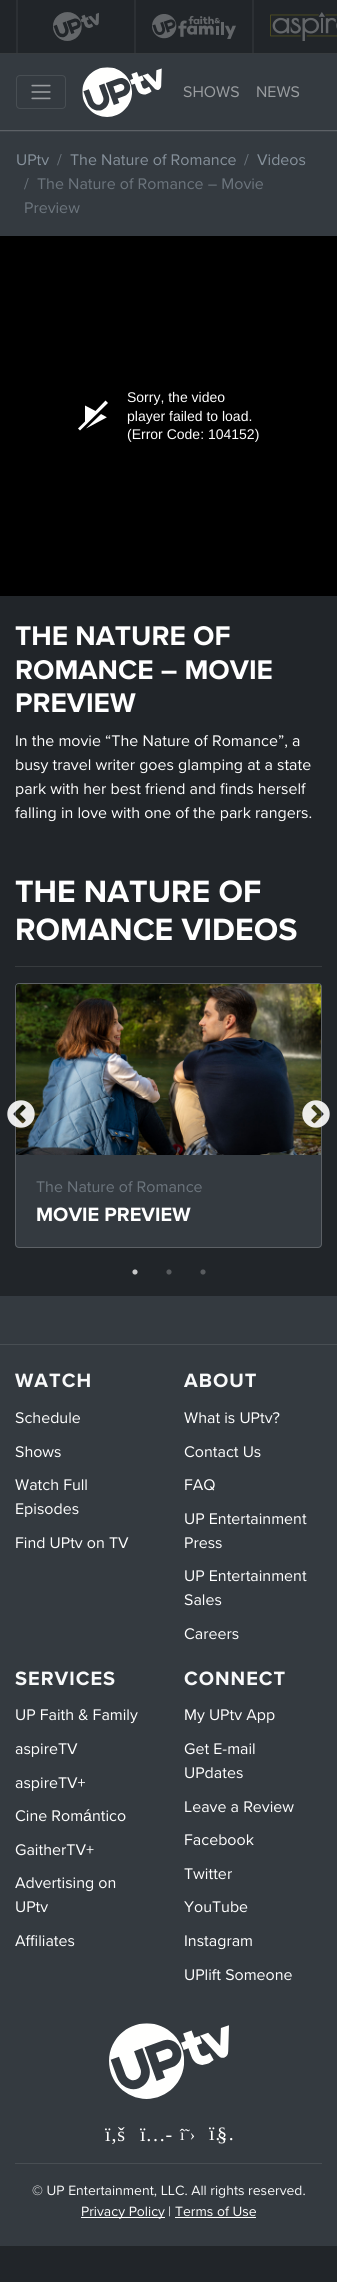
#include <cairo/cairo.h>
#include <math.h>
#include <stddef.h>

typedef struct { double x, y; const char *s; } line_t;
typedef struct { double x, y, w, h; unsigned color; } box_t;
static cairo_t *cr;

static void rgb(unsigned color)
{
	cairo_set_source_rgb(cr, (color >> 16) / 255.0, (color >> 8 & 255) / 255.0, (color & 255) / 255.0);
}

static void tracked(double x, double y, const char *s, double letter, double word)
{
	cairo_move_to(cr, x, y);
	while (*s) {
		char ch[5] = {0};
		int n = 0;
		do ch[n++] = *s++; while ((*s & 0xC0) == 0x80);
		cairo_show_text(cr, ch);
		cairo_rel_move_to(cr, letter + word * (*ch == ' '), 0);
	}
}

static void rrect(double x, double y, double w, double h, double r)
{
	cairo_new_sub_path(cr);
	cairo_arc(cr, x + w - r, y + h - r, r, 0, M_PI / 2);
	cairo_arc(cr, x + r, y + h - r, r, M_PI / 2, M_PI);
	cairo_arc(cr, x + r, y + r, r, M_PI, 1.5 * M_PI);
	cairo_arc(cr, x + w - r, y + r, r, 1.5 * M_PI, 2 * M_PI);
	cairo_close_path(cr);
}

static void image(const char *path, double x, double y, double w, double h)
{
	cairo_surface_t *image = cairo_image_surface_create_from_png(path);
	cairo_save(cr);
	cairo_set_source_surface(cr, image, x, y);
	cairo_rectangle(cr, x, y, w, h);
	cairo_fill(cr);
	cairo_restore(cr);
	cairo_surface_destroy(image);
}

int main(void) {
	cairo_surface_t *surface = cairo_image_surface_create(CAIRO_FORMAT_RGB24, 337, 2282);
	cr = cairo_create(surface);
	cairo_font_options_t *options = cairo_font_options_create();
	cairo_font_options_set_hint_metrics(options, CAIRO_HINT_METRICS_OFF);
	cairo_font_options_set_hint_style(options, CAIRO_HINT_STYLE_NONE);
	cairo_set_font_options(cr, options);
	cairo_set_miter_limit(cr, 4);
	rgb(0x212529);
	cairo_paint(cr);
	{
		static const box_t items[] = {
			{0, 53, 337, 1, 0x373b3e},
			{134, 0, 2, 53, 0x2c3034},
			{16, 0, 2, 53, 0x2c3034},
		};
		for (size_t i = 0; i < sizeof items / sizeof *items; i++) {
			rgb(items[i].color);
			cairo_rectangle(cr, items[i].x, items[i].y, items[i].w, items[i].h);
			cairo_fill(cr);
		}
	}
	image("img/1.png", 53, 12, 46, 29);
	cairo_rectangle(cr, 252, 0, 2, 53);
	cairo_fill(cr);
	image("img/2.png", 152, 14, 84, 25);
	image("img/3.png", 270, 12, 67, 29);
	rgb(0x343a40);
	cairo_rectangle(cr, 0, 54, 337, 76);
	cairo_fill(cr);
	rgb(0x5d6166);
	cairo_rectangle(cr, 0, 130, 337, 1);
	cairo_fill(cr);
	rrect(16.5, 75.5, 49, 33, 3.5);
	rgb(0x484e53);
	cairo_set_line_width(cr, 1);
	cairo_stroke(cr);
	image("img/4.png", 31, 84, 20, 16);
	image("img/5.png", 82, 67, 80, 50);
	{
		static const box_t items[] = {
			{0, 132, 337, 104, 0x343a40},
			{0, 131, 337, 1, 0x3e444a},
			{0, 236, 337, 360, 0x000000},
		};
		for (size_t i = 0; i < sizeof items / sizeof *items; i++) {
			rgb(items[i].color);
			cairo_rectangle(cr, items[i].x, items[i].y, items[i].w, items[i].h);
			cairo_fill(cr);
		}
	}
	rgb(0xffffff);
	cairo_new_path(cr);
	cairo_move_to(cr, 106.5, 417.5);
	cairo_line_to(cr, 86, 428.5);
	cairo_line_to(cr, 101, 414);
	cairo_curve_to(cr, 106.5, 417, 107.5, 417.5, 106.5, 417.5);
	cairo_close_path(cr);
	cairo_move_to(cr, 105.5, 400.5);
	cairo_line_to(cr, 95.5, 411);
	cairo_line_to(cr, 85, 405.5);
	cairo_line_to(cr, 85, 421.5);
	cairo_line_to(cr, 78, 428.5);
	cairo_line_to(cr, 80, 430.5);
	cairo_line_to(cr, 108, 403);
	cairo_close_path(cr);
	cairo_fill(cr);
	rgb(0x373b3e);
	cairo_rectangle(cr, 15, 966, 307, 1);
	cairo_fill(cr);
	rgb(0x343a40);
	rrect(15, 983, 307, 265, 4);
	cairo_fill(cr);
	rrect(15.5, 983.5, 306, 264, 3.5);
	cairo_set_source_rgba(cr, 1, 1, 1, 0.2);
	cairo_stroke(cr);
	image("img/8.png", 16, 984, 305, 171);
	image("img/6.png", 7, 1100, 28, 28);
	image("img/7.png", 302, 1100, 28, 28);
	image("img/9.png", 132, 1269, 6, 6);
	image("img/10.png", 166, 1269, 6, 6);
	image("img/10.png", 200, 1269, 6, 6);
	{
		static const box_t items[] = {
			{0, 1296, 337, 48, 0x343a40},
			{0, 1345, 337, 901, 0x343a40},
			{0, 1344, 337, 1, 0x484e53},
		};
		for (size_t i = 0; i < sizeof items / sizeof *items; i++) {
			rgb(items[i].color);
			cairo_rectangle(cr, items[i].x, items[i].y, items[i].w, items[i].h);
			cairo_fill(cr);
		}
	}
	image("img/11.png", 109, 2023, 120, 76);
	{
		static const box_t items[] = {
			{15, 2163, 307, 1, 0x484e53},
			{81, 2217, 84, 1, 0xffffff},
			{175, 2217, 81, 1, 0xffffff},
		};
		for (size_t i = 0; i < sizeof items / sizeof *items; i++) {
			rgb(items[i].color);
			cairo_rectangle(cr, items[i].x, items[i].y, items[i].w, items[i].h);
			cairo_fill(cr);
		}
	}
	cairo_select_font_face(cr, "Proxima Nova", CAIRO_FONT_SLANT_NORMAL, CAIRO_FONT_WEIGHT_NORMAL);
	cairo_set_font_size(cr, 16);
	rgb(0x9a9da0);
	cairo_move_to(cr, 183, 97);
	cairo_show_text(cr, "SHOWS");
	cairo_move_to(cr, 256, 97);
	cairo_show_text(cr, "NEWS");
	rgb(0x86919b);
	cairo_move_to(cr, 16, 165);
	cairo_show_text(cr, "UPtv");
	rgb(0x6c757d);
	cairo_move_to(cr, 57, 165);
	cairo_show_text(cr, "/");
	rgb(0x86919b);
	cairo_move_to(cr, 70, 165);
	cairo_show_text(cr, "The Nature of Romance");
	rgb(0x6c757d);
	cairo_move_to(cr, 244, 165);
	cairo_show_text(cr, "/");
	rgb(0x86919b);
	cairo_move_to(cr, 257, 165);
	cairo_show_text(cr, "Videos");
	rgb(0x6c757d);
	{
		static const line_t items[] = {
			{24, 189, "/"},
			{37, 189, "The Nature of Romance – Movie"},
			{24, 213, "Preview"},
		};
		for (size_t i = 0; i < sizeof items / sizeof *items; i++) {
			cairo_move_to(cr, items[i].x, items[i].y);
			cairo_show_text(cr, items[i].s);
		}
	}
	cairo_select_font_face(cr, "Liberation Sans", CAIRO_FONT_SLANT_NORMAL, CAIRO_FONT_WEIGHT_NORMAL);
	cairo_set_font_size(cr, 14);
	rgb(0xffffff);
	{
		static const line_t items[] = {
			{127, 402, "Sorry, the video"},
			{127, 421, "player failed to load."},
			{127, 439, "(Error Code: 104152)"},
		};
		for (size_t i = 0; i < sizeof items / sizeof *items; i++) {
			cairo_move_to(cr, items[i].x, items[i].y);
			cairo_show_text(cr, items[i].s);
		}
	}
	cairo_select_font_face(cr, "Proxima Nova", CAIRO_FONT_SLANT_NORMAL, CAIRO_FONT_WEIGHT_BOLD);
	cairo_set_font_size(cr, 28);
	{
		static const line_t items[] = {
			{15, 645, "THE NATURE OF"},
			{15, 679, "ROMANCE – MOVIE"},
			{15, 712, "PREVIEW"},
		};
		for (size_t i = 0; i < sizeof items / sizeof *items; i++) {
			cairo_move_to(cr, items[i].x, items[i].y);
			cairo_show_text(cr, items[i].s);
		}
	}
	cairo_select_font_face(cr, "Proxima Nova", CAIRO_FONT_SLANT_NORMAL, CAIRO_FONT_WEIGHT_NORMAL);
	cairo_set_font_size(cr, 16);
	{
		static const line_t items[] = {
			{15, 746, "In the movie “The Nature of Romance”, a"},
			{15, 770, "busy travel writer goes glamping at a state"},
			{15, 794, "park with her best friend and finds herself"},
			{15, 818, "falling in love with one of the park rangers."},
		};
		for (size_t i = 0; i < sizeof items / sizeof *items; i++) {
			cairo_move_to(cr, items[i].x, items[i].y);
			cairo_show_text(cr, items[i].s);
		}
	}
	cairo_select_font_face(cr, "Proxima Nova", CAIRO_FONT_SLANT_NORMAL, CAIRO_FONT_WEIGHT_BOLD);
	cairo_set_font_size(cr, 32);
	cairo_move_to(cr, 15, 902);
	cairo_show_text(cr, "THE NATURE OF");
	cairo_move_to(cr, 15, 940);
	cairo_show_text(cr, "ROMANCE VIDEOS");
	cairo_select_font_face(cr, "Proxima Nova", CAIRO_FONT_SLANT_NORMAL, CAIRO_FONT_WEIGHT_NORMAL);
	cairo_set_font_size(cr, 16);
	rgb(0x6c757d);
	cairo_move_to(cr, 36, 1192);
	cairo_show_text(cr, "The Nature of Romance");
	cairo_select_font_face(cr, "Proxima Nova", CAIRO_FONT_SLANT_NORMAL, CAIRO_FONT_WEIGHT_BOLD);
	cairo_set_font_size(cr, 20);
	rgb(0xffffff);
	cairo_move_to(cr, 36, 1221);
	cairo_show_text(cr, "MOVIE PREVIEW");
	rgb(0xf8f9fa);
	tracked(15, 1387, "WATCH", 1, 0);
	cairo_select_font_face(cr, "Proxima Nova", CAIRO_FONT_SLANT_NORMAL, CAIRO_FONT_WEIGHT_NORMAL);
	cairo_set_font_size(cr, 16);
	rgb(0xffffff);
	{
		static const line_t items[] = {
			{15, 1423, "Schedule"},
			{15, 1457, "Shows"},
			{15, 1490, "Watch Full"},
			{15, 1514, "Episodes"},
			{15, 1548, "Find UPtv on TV"},
		};
		for (size_t i = 0; i < sizeof items / sizeof *items; i++) {
			cairo_move_to(cr, items[i].x, items[i].y);
			cairo_show_text(cr, items[i].s);
		}
	}
	cairo_select_font_face(cr, "Proxima Nova", CAIRO_FONT_SLANT_NORMAL, CAIRO_FONT_WEIGHT_BOLD);
	cairo_set_font_size(cr, 20);
	rgb(0xf8f9fa);
	tracked(184, 1387, "ABOUT", 1, 0);
	cairo_select_font_face(cr, "Proxima Nova", CAIRO_FONT_SLANT_NORMAL, CAIRO_FONT_WEIGHT_NORMAL);
	cairo_set_font_size(cr, 16);
	rgb(0xffffff);
	{
		static const line_t items[] = {
			{184, 1423, "What is UPtv?"},
			{184, 1457, "Contact Us"},
			{184, 1490, "FAQ"},
			{184, 1524, "UP Entertainment"},
			{184, 1548, "Press"},
			{184, 1581, "UP Entertainment"},
			{184, 1605, "Sales"},
			{184, 1639, "Careers"},
		};
		for (size_t i = 0; i < sizeof items / sizeof *items; i++) {
			cairo_move_to(cr, items[i].x, items[i].y);
			cairo_show_text(cr, items[i].s);
		}
	}
	cairo_select_font_face(cr, "Proxima Nova", CAIRO_FONT_SLANT_NORMAL, CAIRO_FONT_WEIGHT_BOLD);
	cairo_set_font_size(cr, 20);
	rgb(0xf8f9fa);
	tracked(15, 1685, "SERVICES", 1, 0);
	cairo_select_font_face(cr, "Proxima Nova", CAIRO_FONT_SLANT_NORMAL, CAIRO_FONT_WEIGHT_NORMAL);
	cairo_set_font_size(cr, 16);
	rgb(0xffffff);
	{
		static const line_t items[] = {
			{15, 1720, "UP Faith & Family"},
			{15, 1754, "aspireTV"},
			{15, 1788, "aspireTV+"},
			{15, 1821, "Cine Rom"},
		};
		for (size_t i = 0; i < sizeof items / sizeof *items; i++) {
			cairo_move_to(cr, items[i].x, items[i].y);
			cairo_show_text(cr, items[i].s);
		}
	}
	cairo_select_font_face(cr, "Liberation Sans", CAIRO_FONT_SLANT_NORMAL, CAIRO_FONT_WEIGHT_NORMAL);
	cairo_move_to(cr, 83, 1821);
	cairo_show_text(cr, "á");
	cairo_select_font_face(cr, "Proxima Nova", CAIRO_FONT_SLANT_NORMAL, CAIRO_FONT_WEIGHT_NORMAL);
	{
		static const line_t items[] = {
			{92, 1821, "ntico"},
			{15, 1855, "GaitherTV+"},
			{15, 1888, "Advertising on"},
			{15, 1912, "UPtv"},
			{15, 1946, "Affiliates"},
		};
		for (size_t i = 0; i < sizeof items / sizeof *items; i++) {
			cairo_move_to(cr, items[i].x, items[i].y);
			cairo_show_text(cr, items[i].s);
		}
	}
	cairo_select_font_face(cr, "Proxima Nova", CAIRO_FONT_SLANT_NORMAL, CAIRO_FONT_WEIGHT_BOLD);
	cairo_set_font_size(cr, 20);
	rgb(0xf8f9fa);
	tracked(184, 1685, "CONNECT", 1, 0);
	cairo_select_font_face(cr, "Proxima Nova", CAIRO_FONT_SLANT_NORMAL, CAIRO_FONT_WEIGHT_NORMAL);
	cairo_set_font_size(cr, 16);
	rgb(0xffffff);
	{
		static const line_t items[] = {
			{184, 1720, "My UPtv App"},
			{184, 1754, "Get E-mail"},
			{184, 1778, "UPdates"},
			{184, 1812, "Leave a Review"},
			{184, 1845, "Facebook"},
			{184, 1879, "Twitter"},
			{184, 1912, "YouTube"},
			{184, 1946, "Instagram"},
			{184, 1980, "UPlift Someone"},
		};
		for (size_t i = 0; i < sizeof items / sizeof *items; i++) {
			cairo_move_to(cr, items[i].x, items[i].y);
			cairo_show_text(cr, items[i].s);
		}
	}
	cairo_select_font_face(cr, "Liberation Serif", CAIRO_FONT_SLANT_NORMAL, CAIRO_FONT_WEIGHT_NORMAL);
	cairo_set_font_size(cr, 20);
	cairo_move_to(cr, 105, 2141);
	cairo_show_text(cr, "ï‚š");
	cairo_move_to(cr, 140, 2141);
	cairo_show_text(cr, "ï…-");
	cairo_set_font_size(cr, 16);
	cairo_move_to(cr, 180, 2140);
	cairo_show_text(cr, "î˜›");
	cairo_set_font_size(cr, 20);
	cairo_move_to(cr, 209, 2140);
	cairo_show_text(cr, "ï…");
	cairo_move_to(cr, 217, 2141);
	cairo_show_text(cr, "§");
	cairo_select_font_face(cr, "Proxima Nova", CAIRO_FONT_SLANT_NORMAL, CAIRO_FONT_WEIGHT_NORMAL);
	cairo_set_font_size(cr, 14);
	rgb(0xf8f9fa);
	cairo_move_to(cr, 32, 2195);
	cairo_show_text(cr, "© UP Entertainment, LLC. All rights reserved.");
	rgb(0xffffff);
	cairo_move_to(cr, 81, 2216);
	cairo_show_text(cr, "Privacy Policy");
	rgb(0xf8f9fa);
	cairo_move_to(cr, 168, 2216);
	cairo_show_text(cr, "|");
	rgb(0xffffff);
	cairo_move_to(cr, 175, 2216);
	cairo_show_text(cr, "Terms of Use");
	cairo_surface_write_to_png(surface, "page.png");
	cairo_font_options_destroy(options);
	cairo_destroy(cr);
	cairo_surface_destroy(surface);
	return 0;
}
